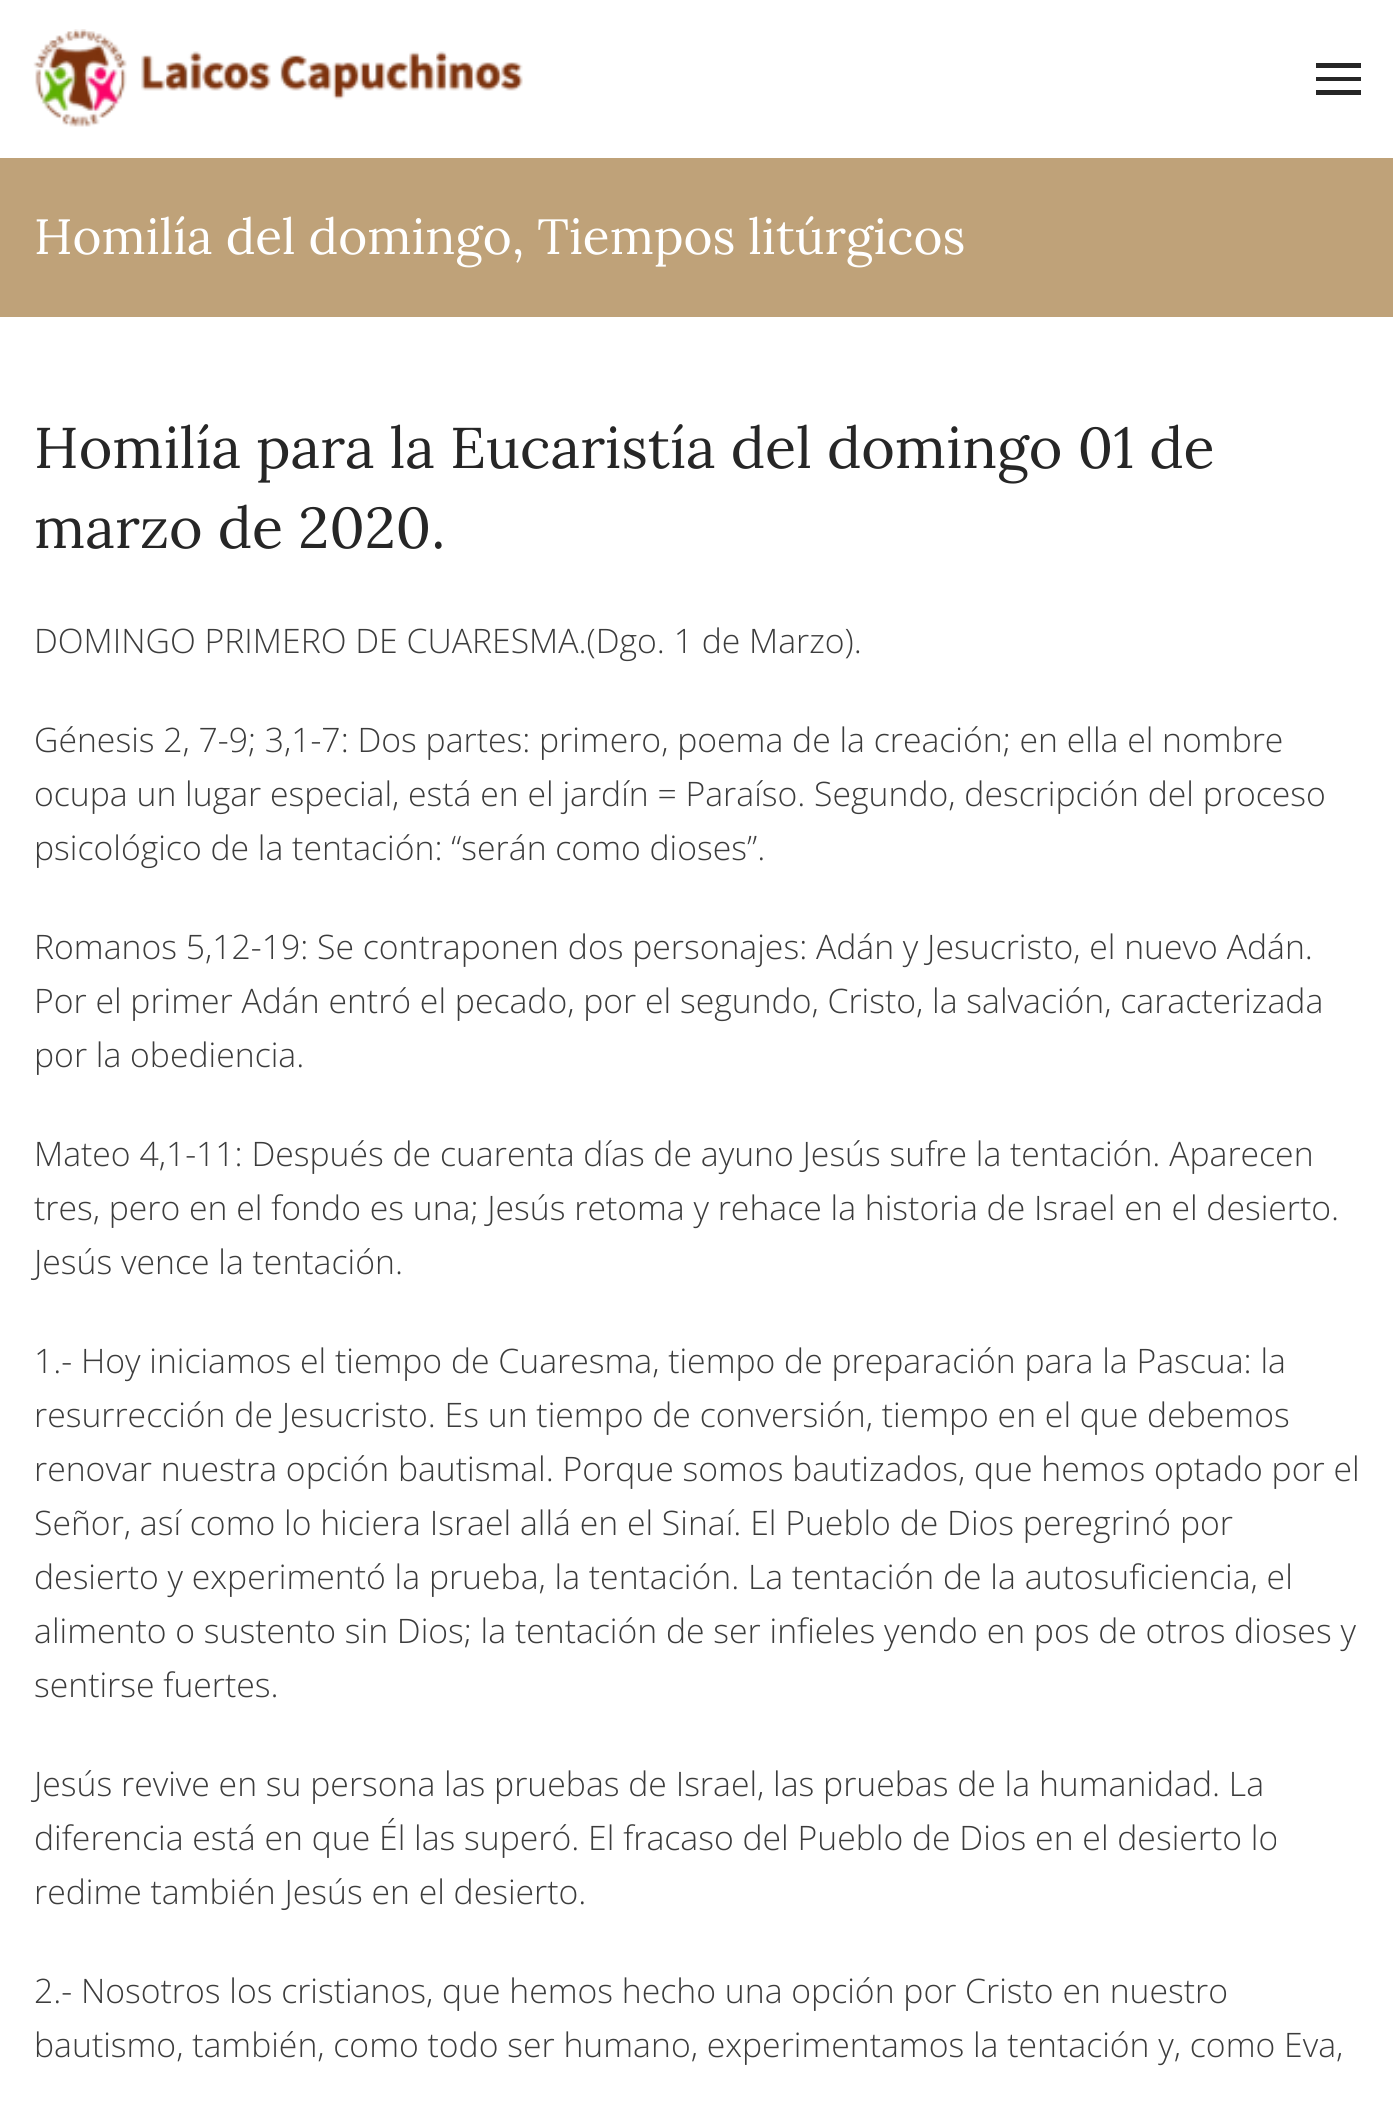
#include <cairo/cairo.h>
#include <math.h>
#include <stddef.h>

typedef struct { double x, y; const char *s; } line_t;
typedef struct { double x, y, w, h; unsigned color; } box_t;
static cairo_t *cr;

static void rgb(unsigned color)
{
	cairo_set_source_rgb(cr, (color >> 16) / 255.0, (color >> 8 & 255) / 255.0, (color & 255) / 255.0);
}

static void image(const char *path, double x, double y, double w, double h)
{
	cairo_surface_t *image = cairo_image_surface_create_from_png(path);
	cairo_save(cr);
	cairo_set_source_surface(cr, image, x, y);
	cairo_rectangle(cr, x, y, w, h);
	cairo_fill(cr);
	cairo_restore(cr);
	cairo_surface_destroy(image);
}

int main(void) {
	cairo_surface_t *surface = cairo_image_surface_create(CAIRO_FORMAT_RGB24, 1393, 2102);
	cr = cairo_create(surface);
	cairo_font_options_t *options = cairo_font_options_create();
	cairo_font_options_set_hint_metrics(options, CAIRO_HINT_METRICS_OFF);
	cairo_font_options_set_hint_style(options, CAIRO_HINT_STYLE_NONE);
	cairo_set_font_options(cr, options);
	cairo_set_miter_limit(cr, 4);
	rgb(0xffffff);
	cairo_paint(cr);
	image("img/1.png", 33, 29, 490, 98);
	{
		static const box_t items[] = {
			{1316, 63, 45, 5, 0x262626},
			{1316, 77, 45, 4, 0x262626},
			{1316, 90, 45, 5, 0x262626},
			{0, 158, 1393, 159, 0xbfa279},
		};
		for (size_t i = 0; i < sizeof items / sizeof *items; i++) {
			rgb(items[i].color);
			cairo_rectangle(cr, items[i].x, items[i].y, items[i].w, items[i].h);
			cairo_fill(cr);
		}
	}
	cairo_select_font_face(cr, "Lora", CAIRO_FONT_SLANT_NORMAL, CAIRO_FONT_WEIGHT_NORMAL);
	cairo_set_font_size(cr, 49.5);
	rgb(0xffffff);
	cairo_move_to(cr, 34, 254);
	cairo_show_text(cr, "Homilía del domingo, Tiempos litúrgicos");
	cairo_set_font_size(cr, 57.4);
	rgb(0x262626);
	cairo_move_to(cr, 34, 468);
	cairo_show_text(cr, "Homilía para la Eucaristía del domingo 01 de");
	cairo_move_to(cr, 34, 548);
	cairo_show_text(cr, "marzo de 2020.");
	cairo_select_font_face(cr, "Open Sans Light", CAIRO_FONT_SLANT_NORMAL, CAIRO_FONT_WEIGHT_NORMAL);
	cairo_set_font_size(cr, 33.75);
	rgb(0x3c3c3c);
	{
		static const line_t items[] = {
			{34, 653, "DOMINGO PRIMERO DE CUARESMA.(Dgo. 1 de Marzo)."},
			{34, 752, "Génesis 2, 7-9; 3,1-7: Dos partes: primero, poema de la creación; en ella el nombre"},
			{34, 806, "ocupa un lugar especial, está en el jardín = Paraíso. Segundo, descripción del proceso"},
			{34, 860, "psicológico de la tentación: “serán como dioses”."},
			{34, 959, "Romanos 5,12-19: Se contraponen dos personajes: Adán y Jesucristo, el nuevo Adán."},
			{34, 1013, "Por el primer Adán entró el pecado, por el segundo, Cristo, la salvación, caracterizada"},
			{34, 1067, "por la obediencia."},
			{34, 1166, "Mateo 4,1-11: Después de cuarenta días de ayuno Jesús sufre la tentación. Aparecen"},
			{34, 1220, "tres, pero en el fondo es una; Jesús retoma y rehace la historia de Israel en el desierto."},
			{34, 1274, "Jesús vence la tentación."},
			{34, 1373, "1.- Hoy iniciamos el tiempo de Cuaresma, tiempo de preparación para la Pascua: la"},
			{34, 1427, "resurrección de Jesucristo. Es un tiempo de conversión, tiempo en el que debemos"},
			{34, 1481, "renovar nuestra opción bautismal. Porque somos bautizados, que hemos optado por el"},
			{34, 1535, "Señor, así como lo hiciera Israel allá en el Sinaí. El Pueblo de Dios peregrinó por"},
			{34, 1589, "desierto y experimentó la prueba, la tentación. La tentación de la autosuficiencia, el"},
			{34, 1643, "alimento o sustento sin Dios; la tentación de ser infieles yendo en pos de otros dioses y"},
			{34, 1697, "sentirse fuertes."},
			{34, 1796, "Jesús revive en su persona las pruebas de Israel, las pruebas de la humanidad. La"},
			{34, 1850, "diferencia está en que Él las superó. El fracaso del Pueblo de Dios en el desierto lo"},
			{34, 1904, "redime también Jesús en el desierto."},
			{34, 2003, "2.- Nosotros los cristianos, que hemos hecho una opción por Cristo en nuestro"},
			{34, 2057, "bautismo, también, como todo ser humano, experimentamos la tentación y, como Eva,"},
		};
		for (size_t i = 0; i < sizeof items / sizeof *items; i++) {
			cairo_move_to(cr, items[i].x, items[i].y);
			cairo_show_text(cr, items[i].s);
		}
	}
	cairo_surface_write_to_png(surface, "page.png");
	cairo_font_options_destroy(options);
	cairo_destroy(cr);
	cairo_surface_destroy(surface);
	return 0;
}
